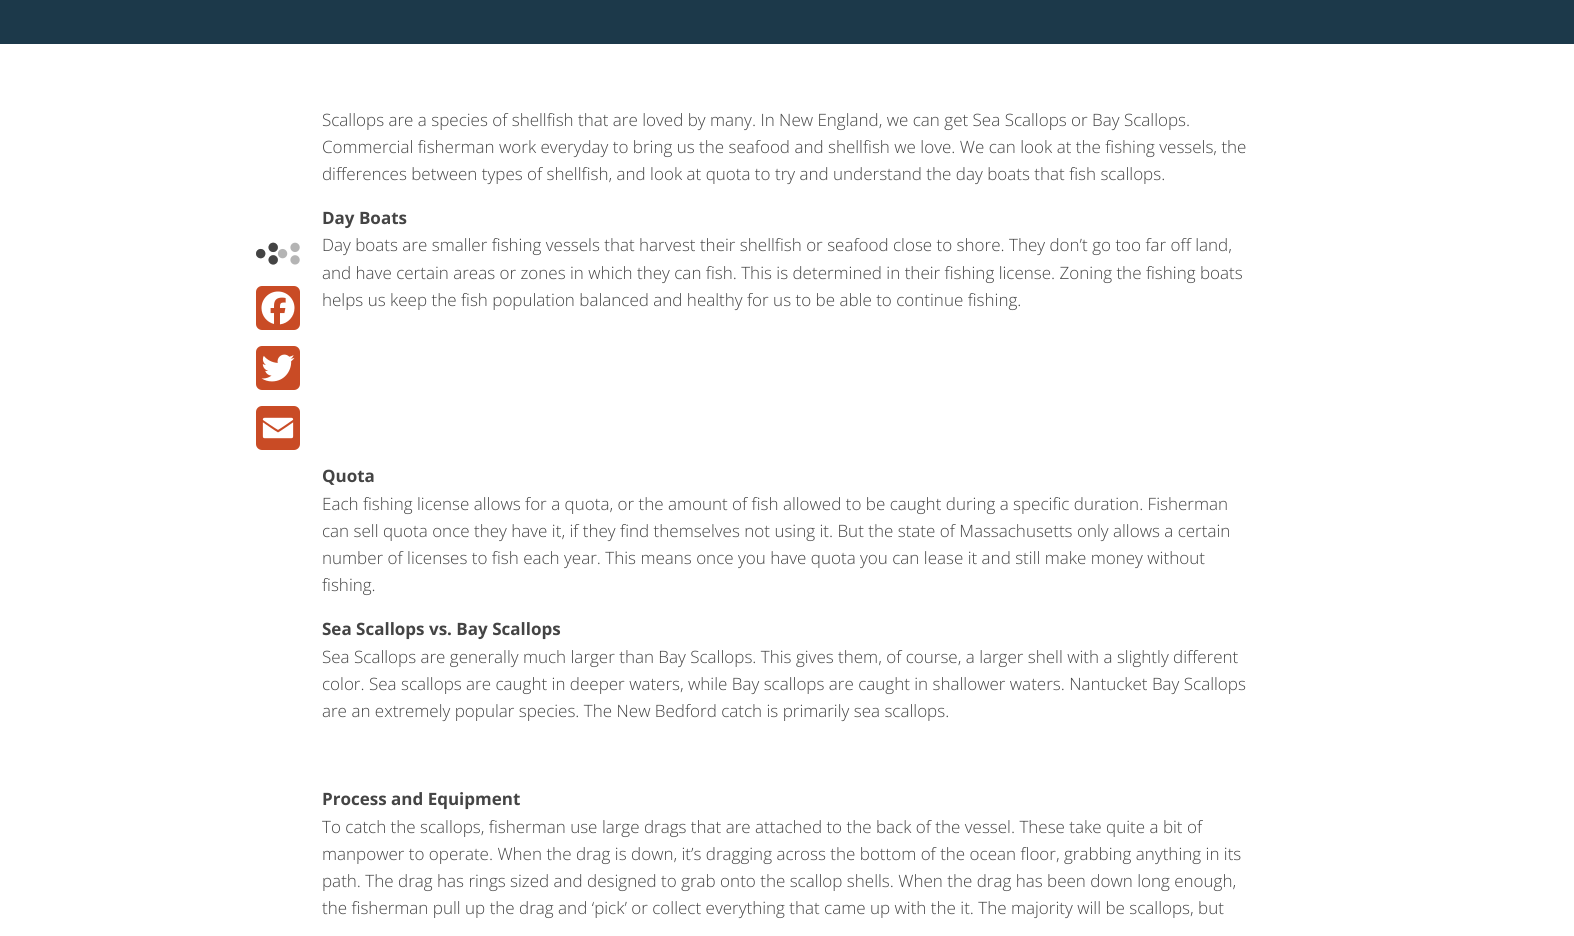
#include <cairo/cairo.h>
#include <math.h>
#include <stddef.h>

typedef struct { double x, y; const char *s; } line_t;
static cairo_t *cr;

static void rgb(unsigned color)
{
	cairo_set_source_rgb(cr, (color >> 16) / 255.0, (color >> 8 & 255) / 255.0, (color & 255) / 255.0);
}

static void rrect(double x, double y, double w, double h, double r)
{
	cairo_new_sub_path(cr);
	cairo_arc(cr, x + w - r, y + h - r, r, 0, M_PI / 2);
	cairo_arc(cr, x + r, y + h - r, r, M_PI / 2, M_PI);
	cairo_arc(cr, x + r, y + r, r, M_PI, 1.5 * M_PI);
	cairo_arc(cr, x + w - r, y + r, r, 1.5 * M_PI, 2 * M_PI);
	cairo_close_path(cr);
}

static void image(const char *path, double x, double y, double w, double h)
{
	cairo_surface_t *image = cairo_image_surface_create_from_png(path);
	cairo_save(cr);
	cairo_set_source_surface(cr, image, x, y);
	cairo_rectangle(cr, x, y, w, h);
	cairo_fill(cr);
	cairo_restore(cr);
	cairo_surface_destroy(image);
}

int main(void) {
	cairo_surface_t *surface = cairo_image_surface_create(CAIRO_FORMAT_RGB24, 1574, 936);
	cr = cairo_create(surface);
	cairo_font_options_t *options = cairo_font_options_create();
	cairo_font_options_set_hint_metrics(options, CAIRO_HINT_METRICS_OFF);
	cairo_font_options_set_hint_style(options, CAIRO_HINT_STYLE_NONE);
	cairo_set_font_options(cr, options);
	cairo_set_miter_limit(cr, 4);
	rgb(0xffffff);
	cairo_paint(cr);
	rgb(0x1c394a);
	cairo_rectangle(cr, 0, 0, 1574, 44);
	cairo_fill(cr);
	image("img/1.png", 256, 242, 22, 23);
	image("img/2.png", 256, 242, 44, 23);
	rgb(0xc94b25);
	rrect(256, 286, 44, 44, 6);
	cairo_fill(cr);
	image("img/3.png", 261, 291, 34, 34);
	rrect(256, 346, 44, 44, 6);
	cairo_fill(cr);
	image("img/4.png", 261, 354, 34, 28);
	rrect(256, 406, 44, 44, 6);
	cairo_fill(cr);
	image("img/5.png", 262, 417, 32, 22);
	cairo_select_font_face(cr, "Open Sans Light", CAIRO_FONT_SLANT_NORMAL, CAIRO_FONT_WEIGHT_NORMAL);
	cairo_set_font_size(cr, 17);
	rgb(0x444444);
	{
		static const line_t items[] = {
			{322, 126, "Scallops are a species of shellfish that are loved by many. In New England, we can get Sea Scallops or Bay Scallops."},
			{322, 153, "Commercial fisherman work everyday to bring us the seafood and shellfish we love. We can look at the fishing vessels, the"},
			{322, 180, "differences between types of shellfish, and look at quota to try and understand the day boats that fish scallops."},
		};
		for (size_t i = 0; i < sizeof items / sizeof *items; i++) {
			cairo_move_to(cr, items[i].x, items[i].y);
			cairo_show_text(cr, items[i].s);
		}
	}
	cairo_select_font_face(cr, "Open Sans", CAIRO_FONT_SLANT_NORMAL, CAIRO_FONT_WEIGHT_BOLD);
	cairo_move_to(cr, 322, 224);
	cairo_show_text(cr, "Day Boats");
	cairo_select_font_face(cr, "Open Sans Light", CAIRO_FONT_SLANT_NORMAL, CAIRO_FONT_WEIGHT_NORMAL);
	{
		static const line_t items[] = {
			{322, 251, "Day boats are smaller fishing vessels that harvest their shellfish or seafood close to shore. They don’t go too far off land,"},
			{322, 279, "and have certain areas or zones in which they can fish. This is determined in their fishing license. Zoning the fishing boats"},
			{322, 306, "helps us keep the fish population balanced and healthy for us to be able to continue fishing."},
		};
		for (size_t i = 0; i < sizeof items / sizeof *items; i++) {
			cairo_move_to(cr, items[i].x, items[i].y);
			cairo_show_text(cr, items[i].s);
		}
	}
	cairo_select_font_face(cr, "Open Sans", CAIRO_FONT_SLANT_NORMAL, CAIRO_FONT_WEIGHT_BOLD);
	cairo_move_to(cr, 322, 482);
	cairo_show_text(cr, "Quota");
	cairo_select_font_face(cr, "Open Sans Light", CAIRO_FONT_SLANT_NORMAL, CAIRO_FONT_WEIGHT_NORMAL);
	{
		static const line_t items[] = {
			{322, 510, "Each fishing license allows for a quota, or the amount of fish allowed to be caught during a specific duration. Fisherman"},
			{322, 537, "can sell quota once they have it, if they find themselves not using it. But the state of Massachusetts only allows a certain"},
			{322, 564, "number of licenses to fish each year. This means once you have quota you can lease it and still make money without"},
			{322, 591, "fishing."},
		};
		for (size_t i = 0; i < sizeof items / sizeof *items; i++) {
			cairo_move_to(cr, items[i].x, items[i].y);
			cairo_show_text(cr, items[i].s);
		}
	}
	cairo_select_font_face(cr, "Open Sans", CAIRO_FONT_SLANT_NORMAL, CAIRO_FONT_WEIGHT_BOLD);
	cairo_move_to(cr, 322, 635);
	cairo_show_text(cr, "Sea Scallops vs. Bay Scallops");
	cairo_select_font_face(cr, "Open Sans Light", CAIRO_FONT_SLANT_NORMAL, CAIRO_FONT_WEIGHT_NORMAL);
	{
		static const line_t items[] = {
			{322, 663, "Sea Scallops are generally much larger than Bay Scallops. This gives them, of course, a larger shell with a slightly different"},
			{322, 690, "color. Sea scallops are caught in deeper waters, while Bay scallops are caught in shallower waters. Nantucket Bay Scallops"},
			{322, 717, "are an extremely popular species. The New Bedford catch is primarily sea scallops."},
		};
		for (size_t i = 0; i < sizeof items / sizeof *items; i++) {
			cairo_move_to(cr, items[i].x, items[i].y);
			cairo_show_text(cr, items[i].s);
		}
	}
	cairo_select_font_face(cr, "Open Sans", CAIRO_FONT_SLANT_NORMAL, CAIRO_FONT_WEIGHT_BOLD);
	cairo_move_to(cr, 322, 805);
	cairo_show_text(cr, "Process and Equipment");
	cairo_select_font_face(cr, "Open Sans Light", CAIRO_FONT_SLANT_NORMAL, CAIRO_FONT_WEIGHT_NORMAL);
	{
		static const line_t items[] = {
			{322, 833, "To catch the scallops, fisherman use large drags that are attached to the back of the vessel. These take quite a bit of"},
			{322, 860, "manpower to operate. When the drag is down, it’s dragging across the bottom of the ocean floor, grabbing anything in its"},
			{322, 887, "path. The drag has rings sized and designed to grab onto the scallop shells. When the drag has been down long enough,"},
			{322, 914, "the fisherman pull up the drag and ‘pick’ or collect everything that came up with the it. The majority will be scallops, but"},
		};
		for (size_t i = 0; i < sizeof items / sizeof *items; i++) {
			cairo_move_to(cr, items[i].x, items[i].y);
			cairo_show_text(cr, items[i].s);
		}
	}
	cairo_surface_write_to_png(surface, "page.png");
	cairo_font_options_destroy(options);
	cairo_destroy(cr);
	cairo_surface_destroy(surface);
	return 0;
}
